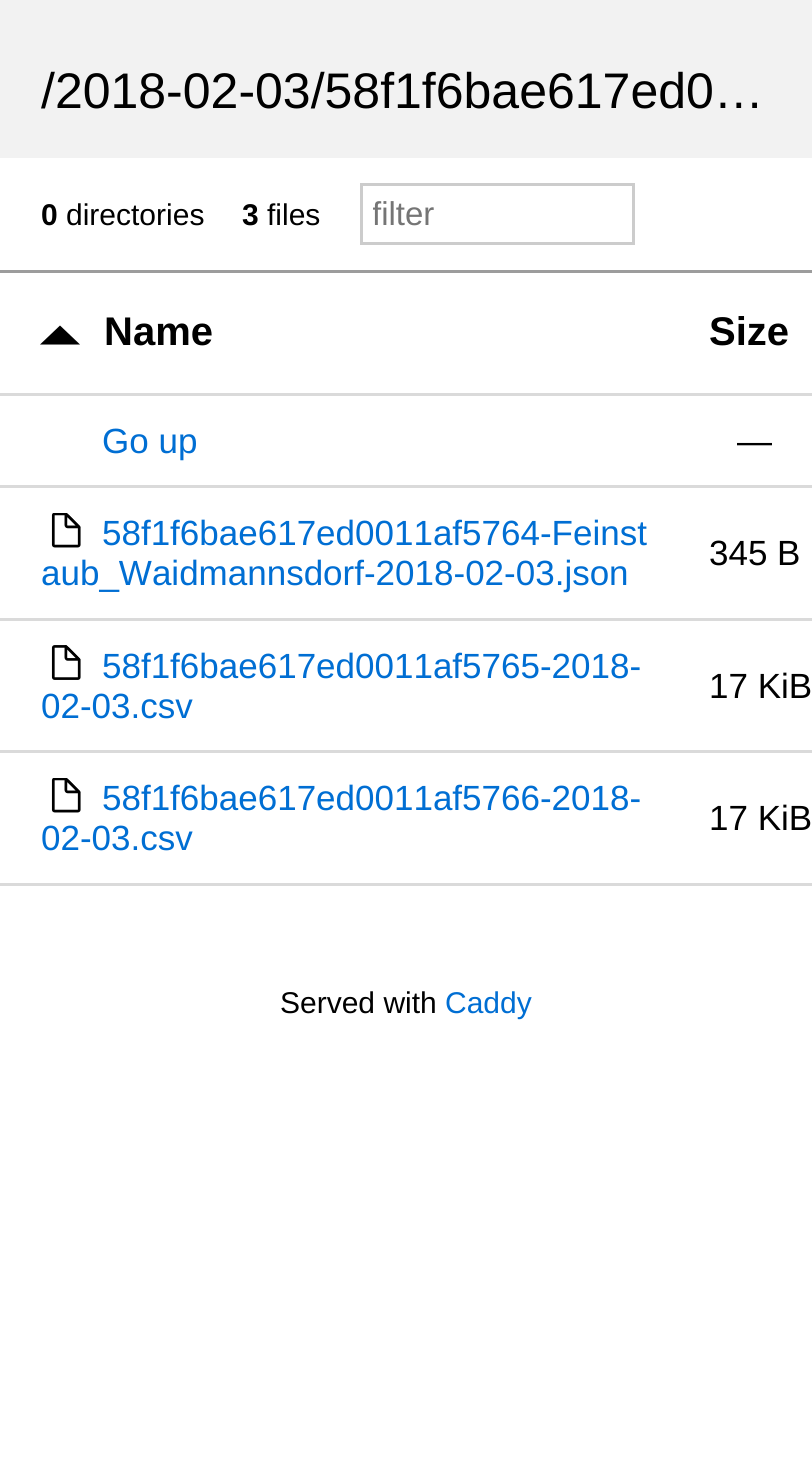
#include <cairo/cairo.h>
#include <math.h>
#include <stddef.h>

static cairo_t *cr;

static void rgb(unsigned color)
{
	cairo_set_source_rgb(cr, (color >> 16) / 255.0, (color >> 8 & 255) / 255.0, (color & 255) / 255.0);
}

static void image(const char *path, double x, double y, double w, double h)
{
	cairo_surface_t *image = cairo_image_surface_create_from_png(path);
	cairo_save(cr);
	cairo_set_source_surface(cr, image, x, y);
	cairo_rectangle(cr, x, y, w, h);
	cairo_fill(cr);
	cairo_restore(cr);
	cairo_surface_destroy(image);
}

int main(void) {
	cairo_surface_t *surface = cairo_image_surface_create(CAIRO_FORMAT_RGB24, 812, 1464);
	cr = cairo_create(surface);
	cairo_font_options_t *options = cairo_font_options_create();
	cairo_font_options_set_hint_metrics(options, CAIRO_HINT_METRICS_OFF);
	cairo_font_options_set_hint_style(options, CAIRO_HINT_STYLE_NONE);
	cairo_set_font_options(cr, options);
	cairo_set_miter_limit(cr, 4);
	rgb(0xffffff);
	cairo_paint(cr);
	rgb(0xf2f2f2);
	cairo_rectangle(cr, 0, 0, 812, 158);
	cairo_fill(cr);
	rgb(0x9c9c9c);
	cairo_rectangle(cr, 0, 270, 812, 3);
	cairo_fill(cr);
	cairo_rectangle(cr, 361.5, 184.5, 272, 59);
	rgb(0xcccccc);
	cairo_set_line_width(cr, 3);
	cairo_stroke(cr);
	rgb(0xdadada);
	cairo_rectangle(cr, 0, 393, 812, 3);
	cairo_fill(cr);
	rgb(0x000000);
	cairo_new_path(cr);
	cairo_move_to(cr, 80, 344.5);
	cairo_line_to(cr, 40, 344.5);
	cairo_line_to(cr, 60, 325.5);
	cairo_line_to(cr, 70, 335);
	cairo_close_path(cr);
	cairo_fill(cr);
	rgb(0xdadada);
	cairo_rectangle(cr, 0, 485, 812, 3);
	cairo_fill(cr);
	cairo_rectangle(cr, 0, 618, 812, 3);
	cairo_fill(cr);
	image("img/1.png", 51, 513, 30, 35);
	cairo_rectangle(cr, 0, 750, 812, 3);
	cairo_fill(cr);
	image("img/2.png", 51, 645, 30, 35);
	cairo_rectangle(cr, 0, 883, 812, 3);
	cairo_fill(cr);
	image("img/1.png", 51, 778, 30, 35);
	cairo_select_font_face(cr, "Liberation Sans", CAIRO_FONT_SLANT_NORMAL, CAIRO_FONT_WEIGHT_NORMAL);
	cairo_set_font_size(cr, 50);
	rgb(0x000000);
	cairo_move_to(cr, 41, 108);
	cairo_show_text(cr, "/2018-02-03/58f1f6bae617ed0…");
	cairo_select_font_face(cr, "Liberation Sans", CAIRO_FONT_SLANT_NORMAL, CAIRO_FONT_WEIGHT_BOLD);
	cairo_set_font_size(cr, 30);
	cairo_move_to(cr, 41, 225);
	cairo_show_text(cr, "0");
	cairo_select_font_face(cr, "Liberation Sans", CAIRO_FONT_SLANT_NORMAL, CAIRO_FONT_WEIGHT_NORMAL);
	cairo_move_to(cr, 66, 225);
	cairo_show_text(cr, "directories");
	cairo_select_font_face(cr, "Liberation Sans", CAIRO_FONT_SLANT_NORMAL, CAIRO_FONT_WEIGHT_BOLD);
	cairo_move_to(cr, 242, 225);
	cairo_show_text(cr, "3");
	cairo_select_font_face(cr, "Liberation Sans", CAIRO_FONT_SLANT_NORMAL, CAIRO_FONT_WEIGHT_NORMAL);
	cairo_move_to(cr, 267, 225);
	cairo_show_text(cr, "files");
	cairo_save(cr);
	cairo_rectangle(cr, 373, 195, 250, 38);
	cairo_clip(cr);
	cairo_set_font_size(cr, 33);
	rgb(0x757575);
	cairo_move_to(cr, 372, 225);
	cairo_show_text(cr, "filter");
	cairo_restore(cr);
	cairo_select_font_face(cr, "Liberation Sans", CAIRO_FONT_SLANT_NORMAL, CAIRO_FONT_WEIGHT_BOLD);
	cairo_set_font_size(cr, 40);
	cairo_move_to(cr, 104, 345);
	cairo_show_text(cr, "Name");
	cairo_move_to(cr, 709, 345);
	cairo_show_text(cr, "Size");
	cairo_select_font_face(cr, "Liberation Sans", CAIRO_FONT_SLANT_NORMAL, CAIRO_FONT_WEIGHT_NORMAL);
	cairo_set_font_size(cr, 35);
	rgb(0x006ed3);
	cairo_move_to(cr, 102, 453);
	cairo_show_text(cr, "Go up");
	rgb(0x000000);
	cairo_move_to(cr, 737, 453);
	cairo_show_text(cr, "—");
	rgb(0x006ed3);
	cairo_move_to(cr, 102, 545);
	cairo_show_text(cr, "58f1f6bae617ed0011af5764-Feinst");
	cairo_move_to(cr, 41, 585);
	cairo_show_text(cr, "aub_Waidmannsdorf-2018-02-03.json");
	rgb(0x000000);
	cairo_move_to(cr, 709, 565);
	cairo_show_text(cr, "345 B");
	rgb(0x006ed3);
	cairo_move_to(cr, 102, 678);
	cairo_show_text(cr, "58f1f6bae617ed0011af5765-2018-");
	cairo_move_to(cr, 41, 718);
	cairo_show_text(cr, "02-03.csv");
	rgb(0x000000);
	cairo_move_to(cr, 709, 698);
	cairo_show_text(cr, "17 KiB");
	rgb(0x006ed3);
	cairo_move_to(cr, 102, 810);
	cairo_show_text(cr, "58f1f6bae617ed0011af5766-2018-");
	cairo_move_to(cr, 41, 850);
	cairo_show_text(cr, "02-03.csv");
	rgb(0x000000);
	cairo_move_to(cr, 709, 830);
	cairo_show_text(cr, "17 KiB");
	cairo_set_font_size(cr, 30);
	cairo_move_to(cr, 280, 1013);
	cairo_show_text(cr, "Served with");
	rgb(0x006ed3);
	cairo_move_to(cr, 445, 1013);
	cairo_show_text(cr, "Caddy");
	cairo_surface_write_to_png(surface, "page.png");
	cairo_font_options_destroy(options);
	cairo_destroy(cr);
	cairo_surface_destroy(surface);
	return 0;
}
